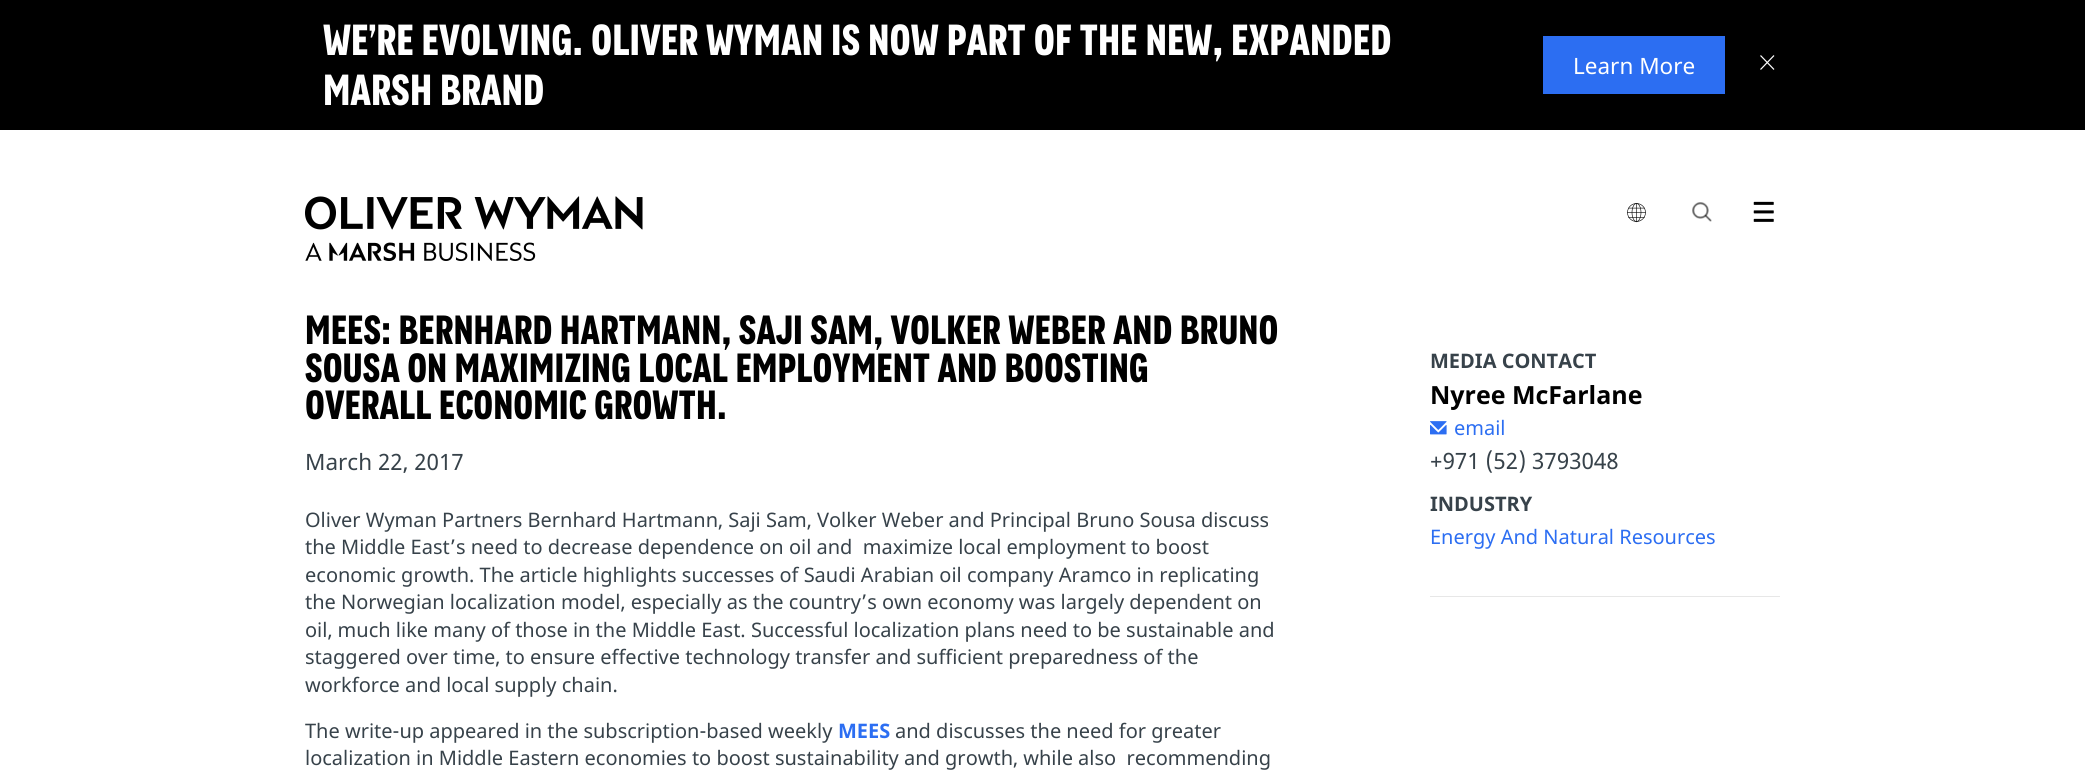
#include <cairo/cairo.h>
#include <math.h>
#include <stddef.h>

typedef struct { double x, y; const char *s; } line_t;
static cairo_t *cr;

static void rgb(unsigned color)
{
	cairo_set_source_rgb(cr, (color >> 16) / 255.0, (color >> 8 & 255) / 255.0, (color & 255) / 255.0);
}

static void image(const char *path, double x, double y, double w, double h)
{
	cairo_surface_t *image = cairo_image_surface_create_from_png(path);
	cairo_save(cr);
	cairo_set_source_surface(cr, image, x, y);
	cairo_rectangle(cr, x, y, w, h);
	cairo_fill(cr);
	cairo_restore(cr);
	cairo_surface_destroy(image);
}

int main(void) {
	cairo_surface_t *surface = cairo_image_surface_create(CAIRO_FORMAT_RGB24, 2085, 779);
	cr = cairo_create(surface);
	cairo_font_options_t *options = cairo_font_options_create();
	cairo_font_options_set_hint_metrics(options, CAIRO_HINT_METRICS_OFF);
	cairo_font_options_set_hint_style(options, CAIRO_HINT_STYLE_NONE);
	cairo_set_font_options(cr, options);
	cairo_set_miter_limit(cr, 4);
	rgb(0xffffff);
	cairo_paint(cr);
	rgb(0x000000);
	cairo_rectangle(cr, 0, 0, 2085, 130);
	cairo_fill(cr);
	rgb(0x2c6ef2);
	cairo_rectangle(cr, 1543, 36, 182, 58);
	cairo_fill(cr);
	cairo_new_path(cr);
	cairo_move_to(cr, 1774, 55.5);
	cairo_line_to(cr, 1760.5, 69.5);
	cairo_move_to(cr, 1774, 69.5);
	cairo_line_to(cr, 1760.5, 55.5);
	rgb(0xffffff);
	cairo_set_line_width(cr, 1.2);
	cairo_stroke(cr);
	image("img/1.png", 305, 196, 338, 65);
	image("img/2.png", 1627, 203, 19, 20);
	image("img/3.png", 1692, 202, 20, 20);
	image("img/4.png", 1753, 201, 21, 21);
	rgb(0xe7e7e7);
	cairo_rectangle(cr, 1430, 596, 350, 1);
	cairo_fill(cr);
	image("img/5.png", 1430, 421, 17, 14);
	cairo_select_font_face(cr, "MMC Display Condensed", CAIRO_FONT_SLANT_NORMAL, CAIRO_FONT_WEIGHT_BOLD);
	cairo_set_font_size(cr, 40);
	rgb(0xffffff);
	cairo_move_to(cr, 323, 55);
	cairo_show_text(cr, "We’re evolving. Oliver Wyman is now part of the new, expanded");
	cairo_move_to(cr, 323, 105);
	cairo_show_text(cr, "Marsh brand");
	cairo_select_font_face(cr, "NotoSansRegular", CAIRO_FONT_SLANT_NORMAL, CAIRO_FONT_WEIGHT_NORMAL);
	cairo_set_font_size(cr, 22.5);
	cairo_move_to(cr, 1573, 74);
	cairo_show_text(cr, "Learn More");
	cairo_select_font_face(cr, "MMC Display Condensed", CAIRO_FONT_SLANT_NORMAL, CAIRO_FONT_WEIGHT_BOLD);
	cairo_set_font_size(cr, 37.5);
	rgb(0x000000);
	{
		static const line_t items[] = {
			{305, 344, "MEES: BERNHARD HARTMANN, SAJI SAM, VOLKER WEBER AND BRUNO"},
			{305, 382, "SOUSA ON MAXIMIZING LOCAL EMPLOYMENT AND BOOSTING"},
			{305, 419, "OVERALL ECONOMIC GROWTH."},
		};
		for (size_t i = 0; i < sizeof items / sizeof *items; i++) {
			cairo_move_to(cr, items[i].x, items[i].y);
			cairo_show_text(cr, items[i].s);
		}
	}
	cairo_select_font_face(cr, "NotoSansRegular", CAIRO_FONT_SLANT_NORMAL, CAIRO_FONT_WEIGHT_NORMAL);
	cairo_set_font_size(cr, 22.5);
	rgb(0x37424a);
	cairo_move_to(cr, 305, 470);
	cairo_show_text(cr, "March 22, 2017");
	cairo_set_font_size(cr, 20);
	{
		static const line_t items[] = {
			{305, 527, "Oliver Wyman Partners Bernhard Hartmann, Saji Sam, Volker Weber and Principal Bruno Sousa discuss"},
			{305, 554, "the Middle East’s need to decrease dependence on oil and  maximize local employment to boost"},
			{305, 582, "economic growth. The article highlights successes of Saudi Arabian oil company Aramco in replicating"},
			{305, 609, "the Norwegian localization model, especially as the country’s own economy was largely dependent on"},
			{305, 637, "oil, much like many of those in the Middle East. Successful localization plans need to be sustainable and"},
			{305, 664, "staggered over time, to ensure effective technology transfer and sufficient preparedness of the"},
			{305, 692, "workforce and local supply chain."},
			{305, 738, "The write-up appeared in the subscription-based weekly"},
		};
		for (size_t i = 0; i < sizeof items / sizeof *items; i++) {
			cairo_move_to(cr, items[i].x, items[i].y);
			cairo_show_text(cr, items[i].s);
		}
	}
	cairo_select_font_face(cr, "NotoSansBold", CAIRO_FONT_SLANT_NORMAL, CAIRO_FONT_WEIGHT_BOLD);
	rgb(0x2c6ef2);
	cairo_move_to(cr, 838, 738);
	cairo_show_text(cr, "MEES");
	cairo_select_font_face(cr, "NotoSansRegular", CAIRO_FONT_SLANT_NORMAL, CAIRO_FONT_WEIGHT_NORMAL);
	rgb(0x37424a);
	cairo_move_to(cr, 895, 738);
	cairo_show_text(cr, "and discusses the need for greater");
	cairo_move_to(cr, 305, 765);
	cairo_show_text(cr, "localization in Middle Eastern economies to boost sustainability and growth, while also  recommending");
	cairo_select_font_face(cr, "NotoSansBold", CAIRO_FONT_SLANT_NORMAL, CAIRO_FONT_WEIGHT_BOLD);
	cairo_move_to(cr, 1430, 368);
	cairo_show_text(cr, "MEDIA CONTACT");
	cairo_set_font_size(cr, 25);
	rgb(0x000000);
	cairo_move_to(cr, 1430, 404);
	cairo_show_text(cr, "Nyree McFarlane");
	cairo_select_font_face(cr, "NotoSansRegular", CAIRO_FONT_SLANT_NORMAL, CAIRO_FONT_WEIGHT_NORMAL);
	cairo_set_font_size(cr, 20);
	rgb(0x2c6ef2);
	cairo_move_to(cr, 1454, 435);
	cairo_show_text(cr, "email");
	cairo_set_font_size(cr, 22.5);
	rgb(0x37424a);
	cairo_move_to(cr, 1430, 469);
	cairo_show_text(cr, "+971 (52) 3793048");
	cairo_select_font_face(cr, "NotoSansBold", CAIRO_FONT_SLANT_NORMAL, CAIRO_FONT_WEIGHT_BOLD);
	cairo_set_font_size(cr, 20);
	cairo_move_to(cr, 1430, 511);
	cairo_show_text(cr, "INDUSTRY");
	cairo_select_font_face(cr, "NotoSansRegular", CAIRO_FONT_SLANT_NORMAL, CAIRO_FONT_WEIGHT_NORMAL);
	rgb(0x2c6ef2);
	cairo_move_to(cr, 1430, 544);
	cairo_show_text(cr, "Energy And Natural Resources");
	cairo_surface_write_to_png(surface, "page.png");
	cairo_font_options_destroy(options);
	cairo_destroy(cr);
	cairo_surface_destroy(surface);
	return 0;
}
